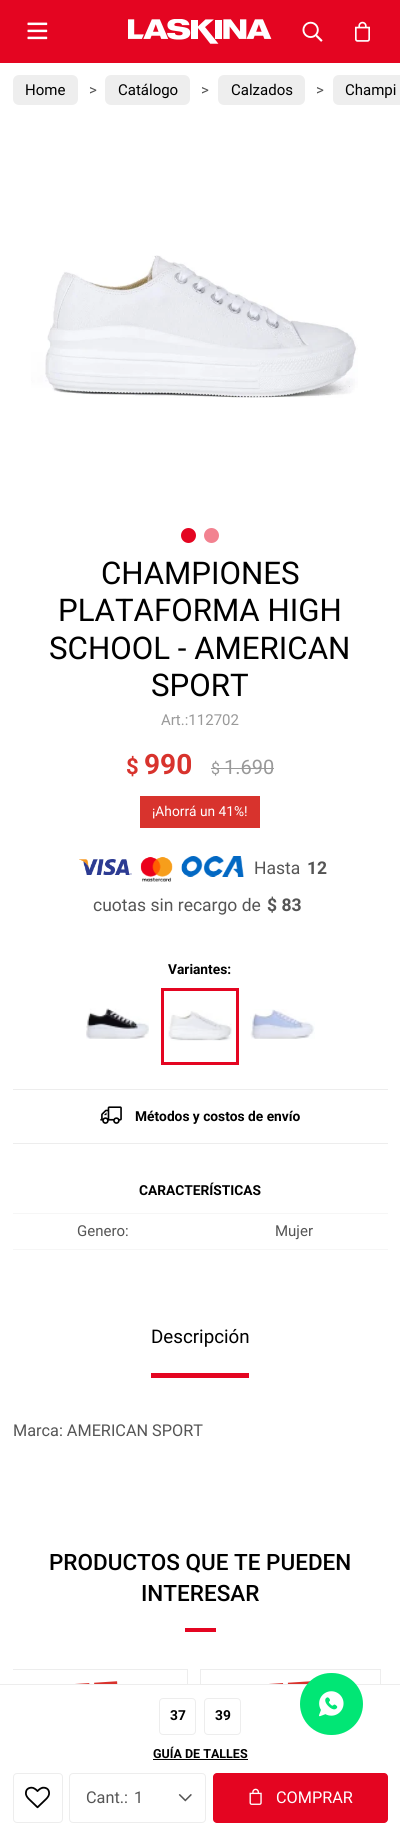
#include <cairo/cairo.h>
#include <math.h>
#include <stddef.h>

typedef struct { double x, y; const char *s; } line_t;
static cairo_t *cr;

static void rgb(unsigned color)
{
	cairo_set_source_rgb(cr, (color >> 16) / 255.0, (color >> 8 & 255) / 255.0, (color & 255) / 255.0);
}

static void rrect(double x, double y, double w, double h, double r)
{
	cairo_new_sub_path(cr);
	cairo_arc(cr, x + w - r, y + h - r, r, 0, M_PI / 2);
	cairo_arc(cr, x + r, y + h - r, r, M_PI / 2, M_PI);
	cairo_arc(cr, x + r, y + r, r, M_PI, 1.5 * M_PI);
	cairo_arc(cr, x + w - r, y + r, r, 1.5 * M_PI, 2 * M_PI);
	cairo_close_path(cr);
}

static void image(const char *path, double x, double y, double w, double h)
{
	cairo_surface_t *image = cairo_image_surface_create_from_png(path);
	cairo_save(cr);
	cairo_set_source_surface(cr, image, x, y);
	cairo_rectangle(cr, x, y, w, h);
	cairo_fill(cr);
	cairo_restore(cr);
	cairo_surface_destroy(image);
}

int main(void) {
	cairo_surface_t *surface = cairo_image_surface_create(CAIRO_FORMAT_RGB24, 400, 1835);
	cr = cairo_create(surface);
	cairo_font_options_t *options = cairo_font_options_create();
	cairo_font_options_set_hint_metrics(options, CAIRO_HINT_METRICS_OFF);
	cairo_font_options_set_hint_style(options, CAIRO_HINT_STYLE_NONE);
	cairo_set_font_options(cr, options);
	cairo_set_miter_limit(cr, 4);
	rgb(0xffffff);
	cairo_paint(cr);
	rgb(0xe40521);
	cairo_rectangle(cr, 0, 0, 400, 63);
	cairo_fill(cr);
	image("img/1.png", 27, 22, 21, 18);
	image("img/2.png", 128, 19, 144, 25);
	image("img/3.png", 302, 21, 21, 21);
	image("img/4.png", 355, 21, 15, 21);
	rgb(0xeeeeee);
	rrect(13, 75, 65, 30, 6);
	cairo_fill(cr);
	rrect(105, 75, 85, 30, 6);
	cairo_fill(cr);
	rrect(218, 75, 87, 30, 6);
	cairo_fill(cr);
	cairo_new_path(cr);
	cairo_move_to(cr, 339, 75);
	cairo_line_to(cr, 400, 75);
	cairo_line_to(cr, 400, 105);
	cairo_line_to(cr, 339, 105);
	cairo_curve_to(cr, 335.5, 105, 333, 102.5, 333, 99);
	cairo_line_to(cr, 333, 81);
	cairo_curve_to(cr, 333, 77.5, 335.5, 75, 339, 75);
	cairo_close_path(cr);
	cairo_fill(cr);
	image("img/5.png", 31, 255, 327, 143);
	rgb(0xe40521);
	cairo_arc(cr, 188.5, 535.5, 7.5, 0, 2 * M_PI);
	cairo_fill(cr);
	rgb(0xf28290);
	cairo_arc(cr, 211.5, 535.5, 7.5, 0, 2 * M_PI);
	cairo_fill(cr);
	rgb(0x999999);
	cairo_rectangle(cr, 211, 768, 63, 1);
	cairo_fill(cr);
	rgb(0xd8332d);
	cairo_rectangle(cr, 140, 796, 120, 32);
	cairo_fill(cr);
	image("img/6.png", 79, 856, 165, 26);
	image("img/7.png", 86, 1008, 63, 31);
	image("img/8.png", 168, 1010, 64, 31);
	cairo_rectangle(cr, 162.5, 989.5, 75, 74);
	rgb(0xe40521);
	cairo_set_line_width(cr, 3);
	cairo_stroke(cr);
	image("img/9.png", 250, 1009, 65, 30);
	rgb(0xededed);
	cairo_rectangle(cr, 13, 1089, 375, 1);
	cairo_fill(cr);
	cairo_rectangle(cr, 13, 1143, 375, 1);
	cairo_fill(cr);
	image("img/10.png", 100, 1106, 22, 18);
	rgb(0xf6f6f6);
	cairo_rectangle(cr, 13, 1213, 375, 1);
	cairo_fill(cr);
	cairo_rectangle(cr, 13, 1249, 375, 1);
	cairo_fill(cr);
	image("img/14.png", 75, 1681, 43, 3);
	cairo_save(cr);
	cairo_rectangle(cr, 13, 1669, 375, 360);
	cairo_clip(cr);
	cairo_rectangle(cr, 6.5, 1669.5, 181, 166);
	rgb(0xededed);
	cairo_set_line_width(cr, 1);
	cairo_stroke(cr);
	cairo_restore(cr);
	image("img/15.png", 269, 1681, 42, 3);
	cairo_rectangle(cr, 200.5, 1669.5, 180, 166);
	rgb(0xededed);
	cairo_set_line_width(cr, 1);
	cairo_stroke(cr);
	rgb(0xffffff);
	cairo_rectangle(cr, 187, 1685, 194, 150);
	cairo_fill(cr);
	rgb(0xededed);
	cairo_rectangle(cr, 0, 1684, 400, 1);
	cairo_fill(cr);
	rrect(159.5, 1698.5, 36, 36, 3.5);
	cairo_stroke(cr);
	rrect(204.5, 1698.5, 36, 36, 3.5);
	cairo_stroke(cr);
	rgb(0x000000);
	cairo_rectangle(cr, 153, 1759, 95, 1);
	cairo_fill(cr);
	rrect(13.5, 1773.5, 49, 49, 3.5);
	rgb(0xededed);
	cairo_stroke(cr);
	image("img/11.png", 25, 1786, 25, 23);
	image("img/12.png", 178, 1794, 14, 8);
	rrect(69.5, 1773.5, 136, 49, 3.5);
	cairo_stroke(cr);
	rgb(0xe40521);
	rrect(213, 1773, 175, 50, 4);
	cairo_fill(cr);
	image("img/13.png", 249, 1788, 13, 17);
	cairo_rectangle(cr, 151, 1373, 98, 5);
	cairo_fill(cr);
	cairo_rectangle(cr, 185, 1628, 31, 4);
	cairo_fill(cr);
	rgb(0x01e675);
	rrect(300, 1673, 63, 62, 31);
	cairo_fill(cr);
	image("img/16.png", 319, 1691, 25, 26);
	cairo_select_font_face(cr, "Roboto", CAIRO_FONT_SLANT_NORMAL, CAIRO_FONT_WEIGHT_NORMAL);
	cairo_set_font_size(cr, 15);
	rgb(0x000000);
	cairo_move_to(cr, 25, 95);
	cairo_show_text(cr, "Home");
	rgb(0x555555);
	cairo_move_to(cr, 89, 95);
	cairo_show_text(cr, ">");
	rgb(0x000000);
	cairo_move_to(cr, 118, 95);
	cairo_show_text(cr, "Catálogo");
	rgb(0x555555);
	cairo_move_to(cr, 201, 95);
	cairo_show_text(cr, ">");
	rgb(0x000000);
	cairo_move_to(cr, 231, 95);
	cairo_show_text(cr, "Calzados");
	rgb(0x555555);
	cairo_move_to(cr, 316, 95);
	cairo_show_text(cr, ">");
	rgb(0x000000);
	cairo_move_to(cr, 345, 95);
	cairo_show_text(cr, "Champi");
	cairo_set_font_size(cr, 31.25);
	{
		static const line_t items[] = {
			{101, 584, "CHAMPIONES"},
			{58, 621, "PLATAFORMA HIGH"},
			{49, 659, "SCHOOL - AMERICAN"},
			{151, 696, "SPORT"},
		};
		for (size_t i = 0; i < sizeof items / sizeof *items; i++) {
			cairo_move_to(cr, items[i].x, items[i].y);
			cairo_show_text(cr, items[i].s);
		}
	}
	cairo_set_font_size(cr, 15);
	rgb(0x999999);
	cairo_move_to(cr, 161, 725);
	cairo_show_text(cr, "Art.:112702");
	cairo_select_font_face(cr, "Roboto", CAIRO_FONT_SLANT_NORMAL, CAIRO_FONT_WEIGHT_BOLD);
	cairo_set_font_size(cr, 22);
	rgb(0xd8332d);
	cairo_move_to(cr, 126, 774);
	cairo_show_text(cr, "$");
	cairo_set_font_size(cr, 28);
	cairo_move_to(cr, 144, 774);
	cairo_show_text(cr, "990");
	cairo_select_font_face(cr, "Roboto", CAIRO_FONT_SLANT_NORMAL, CAIRO_FONT_WEIGHT_NORMAL);
	cairo_set_font_size(cr, 16);
	rgb(0x999999);
	cairo_move_to(cr, 211, 774);
	cairo_show_text(cr, "$");
	cairo_set_font_size(cr, 20);
	cairo_move_to(cr, 224, 774);
	cairo_show_text(cr, "1.690");
	cairo_set_font_size(cr, 13.75);
	rgb(0xffffff);
	cairo_move_to(cr, 152, 816);
	cairo_show_text(cr, "¡Ahorrá un 41%!");
	cairo_set_font_size(cr, 17.5);
	rgb(0x555555);
	cairo_move_to(cr, 254, 874);
	cairo_show_text(cr, "Hasta");
	cairo_select_font_face(cr, "Roboto", CAIRO_FONT_SLANT_NORMAL, CAIRO_FONT_WEIGHT_BOLD);
	cairo_move_to(cr, 307, 874);
	cairo_show_text(cr, "12");
	cairo_select_font_face(cr, "Roboto", CAIRO_FONT_SLANT_NORMAL, CAIRO_FONT_WEIGHT_NORMAL);
	cairo_move_to(cr, 93, 911);
	cairo_show_text(cr, "cuotas sin recargo de");
	cairo_select_font_face(cr, "Roboto", CAIRO_FONT_SLANT_NORMAL, CAIRO_FONT_WEIGHT_BOLD);
	cairo_move_to(cr, 267, 911);
	cairo_show_text(cr, "$ 83");
	cairo_set_font_size(cr, 13.75);
	rgb(0x000000);
	{
		static const line_t items[] = {
			{168, 974, "Variantes:"},
			{135, 1121, "Métodos y costos de envío"},
			{139, 1195, "CARACTERÍSTICAS"},
		};
		for (size_t i = 0; i < sizeof items / sizeof *items; i++) {
			cairo_move_to(cr, items[i].x, items[i].y);
			cairo_show_text(cr, items[i].s);
		}
	}
	cairo_select_font_face(cr, "Roboto", CAIRO_FONT_SLANT_NORMAL, CAIRO_FONT_WEIGHT_NORMAL);
	cairo_set_font_size(cr, 15);
	rgb(0x555555);
	cairo_move_to(cr, 77, 1236);
	cairo_show_text(cr, "Genero:");
	cairo_move_to(cr, 275, 1236);
	cairo_show_text(cr, "Mujer");
	cairo_select_font_face(cr, "Roboto", CAIRO_FONT_SLANT_NORMAL, CAIRO_FONT_WEIGHT_BOLD);
	cairo_set_font_size(cr, 13.75);
	rgb(0x000000);
	cairo_move_to(cr, 170, 1720);
	cairo_show_text(cr, "37");
	cairo_move_to(cr, 215, 1720);
	cairo_show_text(cr, "39");
	cairo_set_font_size(cr, 12.5);
	cairo_move_to(cr, 153, 1758);
	cairo_show_text(cr, "GUÍA DE TALLES");
	cairo_select_font_face(cr, "Roboto", CAIRO_FONT_SLANT_NORMAL, CAIRO_FONT_WEIGHT_NORMAL);
	cairo_set_font_size(cr, 16.25);
	rgb(0x555555);
	cairo_move_to(cr, 86, 1803);
	cairo_show_text(cr, "Cant.:");
	cairo_move_to(cr, 134, 1803);
	cairo_show_text(cr, "1");
	rgb(0xffffff);
	cairo_move_to(cr, 276, 1803);
	cairo_show_text(cr, "COMPRAR");
	cairo_set_font_size(cr, 18.75);
	rgb(0x000000);
	cairo_move_to(cr, 151, 1343);
	cairo_show_text(cr, "Descripción");
	cairo_set_font_size(cr, 16.25);
	rgb(0x555555);
	cairo_move_to(cr, 13, 1436);
	cairo_show_text(cr, "Marca: AMERICAN SPORT");
	cairo_select_font_face(cr, "Roboto Medium", CAIRO_FONT_SLANT_NORMAL, CAIRO_FONT_WEIGHT_NORMAL);
	cairo_set_font_size(cr, 22.5);
	rgb(0x000000);
	cairo_move_to(cr, 49, 1570);
	cairo_show_text(cr, "PRODUCTOS QUE TE PUEDEN");
	cairo_move_to(cr, 141, 1601);
	cairo_show_text(cr, "INTERESAR");
	cairo_surface_write_to_png(surface, "page.png");
	cairo_font_options_destroy(options);
	cairo_destroy(cr);
	cairo_surface_destroy(surface);
	return 0;
}
